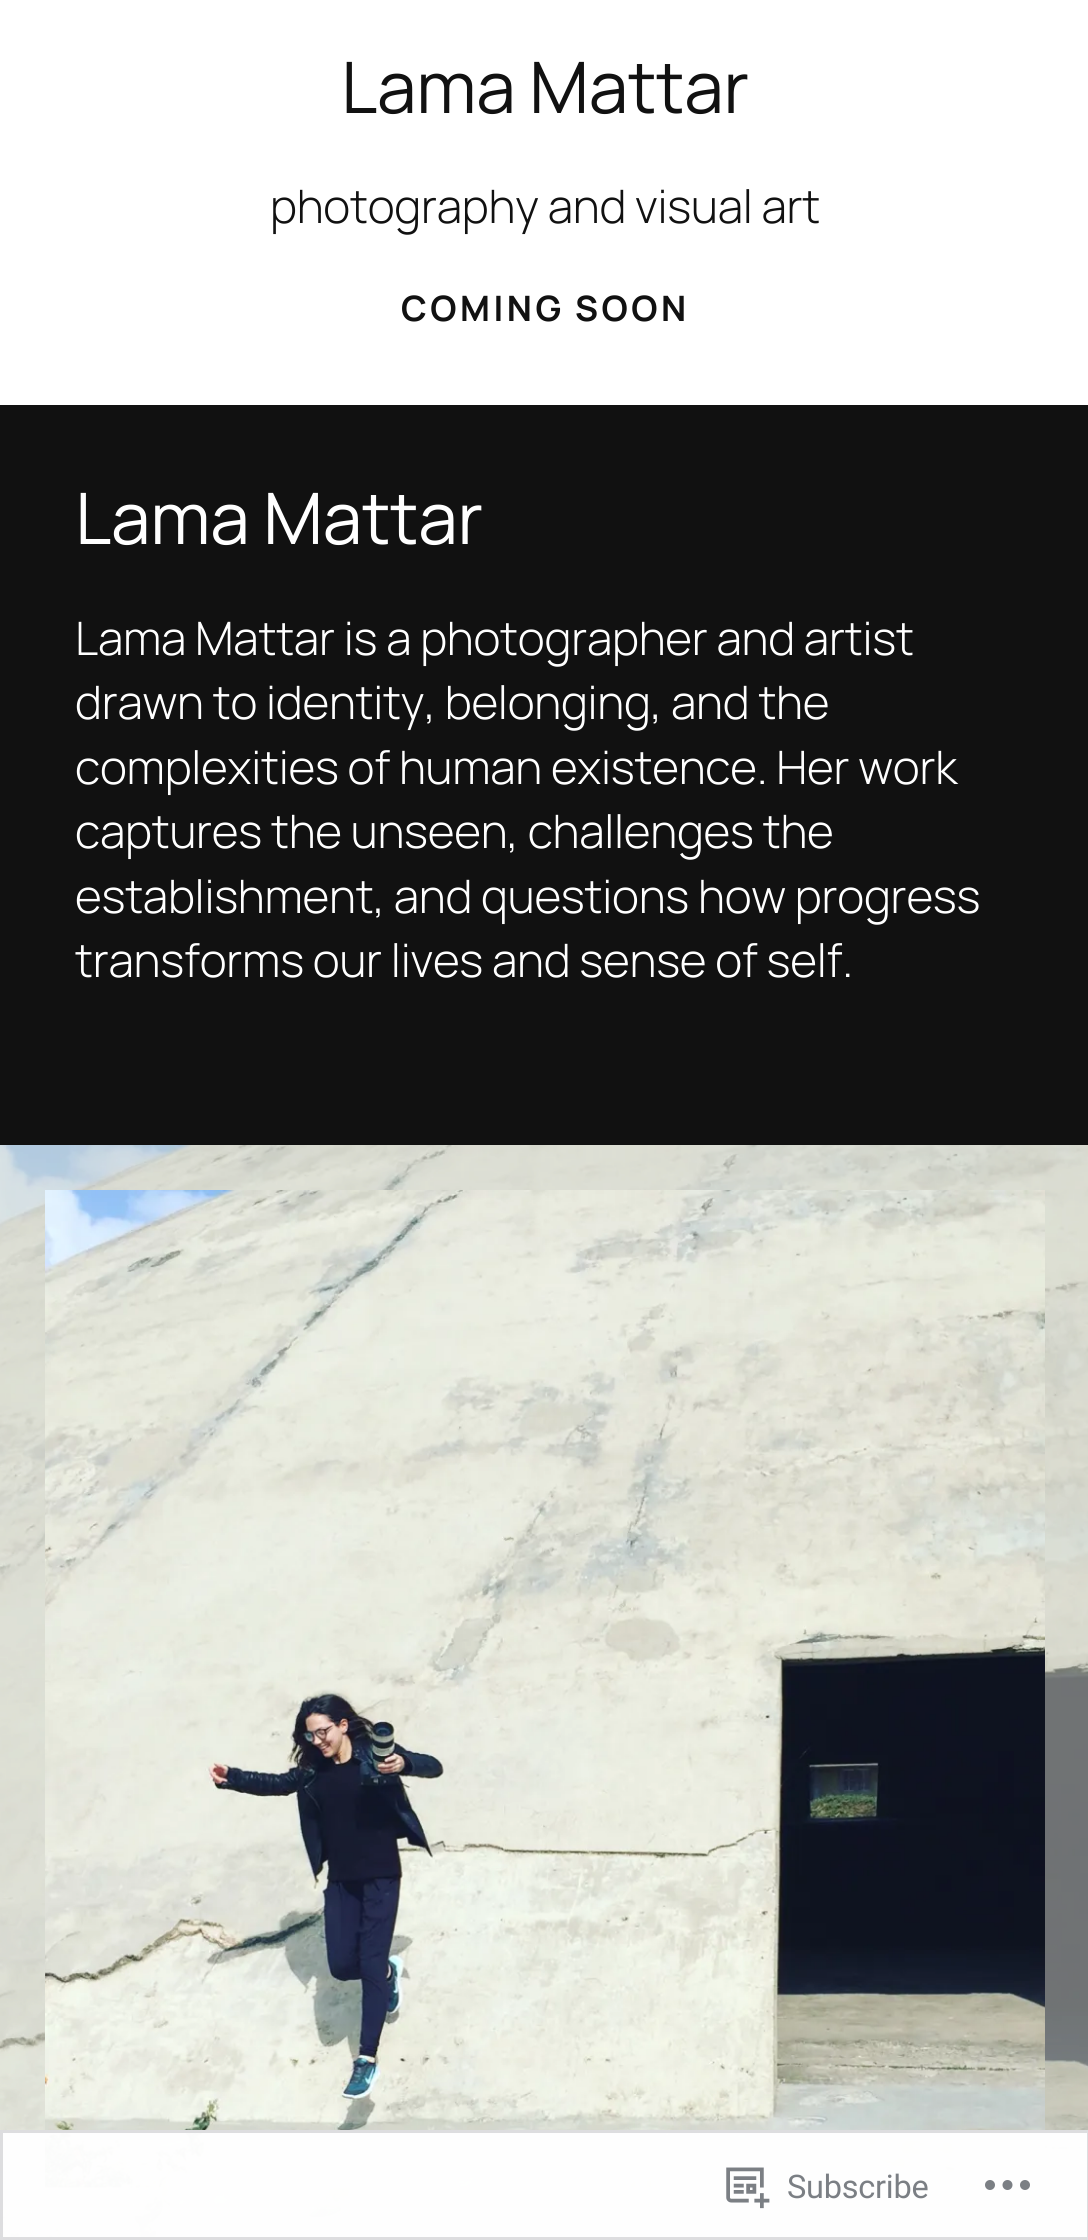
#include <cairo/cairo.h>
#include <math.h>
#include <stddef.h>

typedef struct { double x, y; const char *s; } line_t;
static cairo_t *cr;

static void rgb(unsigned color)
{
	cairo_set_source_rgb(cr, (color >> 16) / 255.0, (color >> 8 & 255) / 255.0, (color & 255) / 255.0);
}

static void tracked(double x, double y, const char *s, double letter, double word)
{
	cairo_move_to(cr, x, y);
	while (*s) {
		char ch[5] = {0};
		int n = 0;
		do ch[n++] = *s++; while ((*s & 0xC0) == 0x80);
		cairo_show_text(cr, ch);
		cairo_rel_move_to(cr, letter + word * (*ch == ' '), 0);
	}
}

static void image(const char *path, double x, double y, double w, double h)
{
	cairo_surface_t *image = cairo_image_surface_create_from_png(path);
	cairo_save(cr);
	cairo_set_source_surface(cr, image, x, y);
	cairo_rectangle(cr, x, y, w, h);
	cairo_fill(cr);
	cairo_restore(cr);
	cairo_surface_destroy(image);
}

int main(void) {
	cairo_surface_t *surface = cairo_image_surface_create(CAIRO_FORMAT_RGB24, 1088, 2240);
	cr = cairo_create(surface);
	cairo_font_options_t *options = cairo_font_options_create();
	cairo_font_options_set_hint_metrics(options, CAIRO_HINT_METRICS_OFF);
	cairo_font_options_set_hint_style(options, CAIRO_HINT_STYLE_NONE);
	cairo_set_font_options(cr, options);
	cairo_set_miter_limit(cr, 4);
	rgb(0xffffff);
	cairo_paint(cr);
	rgb(0x111111);
	cairo_rectangle(cr, 0, 405, 1088, 740);
	cairo_fill(cr);
	image("img/1.png", 0, 1145, 1088, 1095);
	image("img/2.png", 45, 1190, 1000, 998);
	cairo_set_source_rgba(cr, 1, 1, 1, 0.98);
	cairo_rectangle(cr, 0, 2130, 1088, 110);
	cairo_fill(cr);
	cairo_rectangle(cr, 1.5, 2131.5, 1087, 107);
	cairo_set_source_rgba(cr, 0.863, 0.863, 0.871, 0.98);
	cairo_set_line_width(cr, 3);
	cairo_stroke(cr);
	image("img/3.png", 726, 2167, 44, 42);
	image("img/4.png", 985, 2180, 45, 10);
	cairo_select_font_face(cr, "Manrope", CAIRO_FONT_SLANT_NORMAL, CAIRO_FONT_WEIGHT_NORMAL);
	cairo_set_font_size(cr, 71);
	rgb(0x111111);
	tracked(341, 113, "Lama Mattar", -0.25, 0);
	cairo_select_font_face(cr, "Manrope Light", CAIRO_FONT_SLANT_NORMAL, CAIRO_FONT_WEIGHT_NORMAL);
	cairo_set_font_size(cr, 46.1);
	tracked(270, 223, "photography and visual art", -0.25, 0);
	cairo_select_font_face(cr, "Manrope", CAIRO_FONT_SLANT_NORMAL, CAIRO_FONT_WEIGHT_BOLD);
	cairo_set_font_size(cr, 35);
	tracked(401, 321, "COMING SOON", 3.5, 0);
	cairo_select_font_face(cr, "Manrope", CAIRO_FONT_SLANT_NORMAL, CAIRO_FONT_WEIGHT_NORMAL);
	cairo_set_font_size(cr, 71);
	rgb(0xffffff);
	tracked(75, 544, "Lama Mattar", -0.25, 0);
	cairo_select_font_face(cr, "Manrope Light", CAIRO_FONT_SLANT_NORMAL, CAIRO_FONT_WEIGHT_NORMAL);
	cairo_set_font_size(cr, 46.1);
	{
		static const line_t items[] = {
			{75, 655, "Lama Mattar is a photographer and artist"},
			{75, 719, "drawn to identity, belonging, and the"},
			{75, 784, "complexities of human existence. Her work"},
			{75, 848, "captures the unseen, challenges the"},
			{75, 913, "establishment, and questions how progress"},
			{75, 977, "transforms our lives and sense of self."},
		};
		for (size_t i = 0; i < sizeof items / sizeof *items; i++) {
			tracked(items[i].x, items[i].y, items[i].s, -0.25, 0);
		}
	}
	cairo_select_font_face(cr, "Roboto", CAIRO_FONT_SLANT_NORMAL, CAIRO_FONT_WEIGHT_NORMAL);
	cairo_set_font_size(cr, 32.5);
	rgb(0x7b7f84);
	tracked(787, 2198, "Subscribe", -0.25, 0);
	cairo_surface_write_to_png(surface, "page.png");
	cairo_font_options_destroy(options);
	cairo_destroy(cr);
	cairo_surface_destroy(surface);
	return 0;
}
